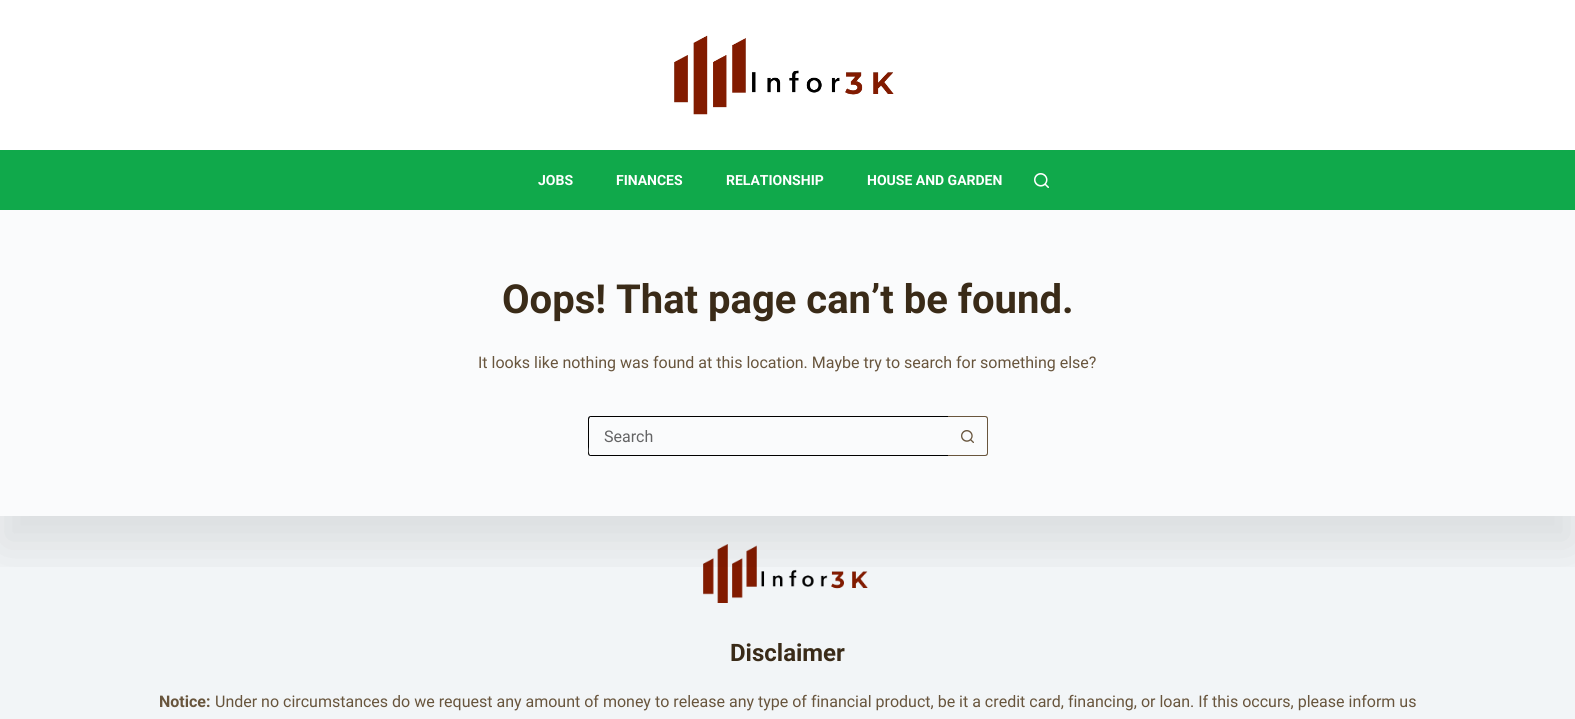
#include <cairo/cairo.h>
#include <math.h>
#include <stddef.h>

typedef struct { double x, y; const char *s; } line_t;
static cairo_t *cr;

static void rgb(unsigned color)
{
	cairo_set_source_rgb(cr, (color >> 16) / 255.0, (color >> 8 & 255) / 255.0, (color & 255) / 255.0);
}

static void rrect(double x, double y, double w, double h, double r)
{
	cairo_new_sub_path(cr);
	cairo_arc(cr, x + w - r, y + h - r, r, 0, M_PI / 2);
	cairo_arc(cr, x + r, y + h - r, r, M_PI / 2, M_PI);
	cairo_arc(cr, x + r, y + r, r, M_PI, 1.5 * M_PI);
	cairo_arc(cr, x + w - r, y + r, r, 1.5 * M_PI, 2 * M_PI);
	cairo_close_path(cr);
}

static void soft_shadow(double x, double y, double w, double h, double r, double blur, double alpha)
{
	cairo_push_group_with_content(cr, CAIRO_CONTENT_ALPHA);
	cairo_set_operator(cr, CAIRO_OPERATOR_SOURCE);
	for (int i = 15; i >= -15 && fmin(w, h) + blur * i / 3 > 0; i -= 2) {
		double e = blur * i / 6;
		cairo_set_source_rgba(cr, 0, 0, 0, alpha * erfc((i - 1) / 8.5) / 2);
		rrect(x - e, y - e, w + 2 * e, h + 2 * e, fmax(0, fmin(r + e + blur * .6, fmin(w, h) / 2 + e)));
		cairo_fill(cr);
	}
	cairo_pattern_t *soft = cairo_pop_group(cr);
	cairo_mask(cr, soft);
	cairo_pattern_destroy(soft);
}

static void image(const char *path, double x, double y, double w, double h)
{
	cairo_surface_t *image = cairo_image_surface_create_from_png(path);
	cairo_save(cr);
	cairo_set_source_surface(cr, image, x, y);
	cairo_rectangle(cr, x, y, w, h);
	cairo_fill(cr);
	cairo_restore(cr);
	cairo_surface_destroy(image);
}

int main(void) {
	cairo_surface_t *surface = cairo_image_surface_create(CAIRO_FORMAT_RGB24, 1575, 719);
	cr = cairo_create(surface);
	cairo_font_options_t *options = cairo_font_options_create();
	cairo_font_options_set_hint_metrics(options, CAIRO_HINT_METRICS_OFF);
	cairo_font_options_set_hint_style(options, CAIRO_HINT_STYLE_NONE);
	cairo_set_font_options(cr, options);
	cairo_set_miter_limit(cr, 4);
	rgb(0xfafbfc);
	cairo_paint(cr);
	rgb(0xffffff);
	cairo_rectangle(cr, 0, 0, 1575, 150);
	cairo_fill(cr);
	image("img/1.png", 674, 35, 220, 80);
	rgb(0xf2f5f7);
	cairo_rectangle(cr, 0, 516, 1575, 203);
	cairo_fill(cr);
	image("img/4.png", 703, 544, 165, 59);
	cairo_save(cr);
	cairo_rectangle(cr, 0, 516, 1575, 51);
	cairo_clip(cr);
	rgb(0x000000);
	soft_shadow(0, 240, 1575, 306, 0, 25, 0.1);
	cairo_restore(cr);
	rgb(0x10a94b);
	cairo_rectangle(cr, 0, 150, 1575, 60);
	cairo_fill(cr);
	image("img/2.png", 1034, 173, 15, 15);
	rgb(0x000000);
	cairo_set_fill_rule(cr, CAIRO_FILL_RULE_EVEN_ODD);
	cairo_new_path(cr);
	cairo_move_to(cr, 591, 416);
	cairo_line_to(cr, 948, 416);
	cairo_line_to(cr, 948, 456);
	cairo_line_to(cr, 591, 456);
	cairo_curve_to(cr, 589, 456, 588, 455, 588, 453);
	cairo_line_to(cr, 588, 419);
	cairo_curve_to(cr, 588, 417, 589, 416, 591, 416);
	cairo_close_path(cr);
	cairo_move_to(cr, 591, 417);
	cairo_line_to(cr, 948, 417);
	cairo_line_to(cr, 948, 455);
	cairo_line_to(cr, 590, 455);
	cairo_curve_to(cr, 588, 453, 589, 448, 589, 447);
	cairo_line_to(cr, 589, 419);
	cairo_line_to(cr, 590, 417);
	cairo_close_path(cr);
	cairo_fill(cr);
	rgb(0x68553d);
	cairo_new_path(cr);
	cairo_move_to(cr, 948, 416);
	cairo_line_to(cr, 985, 416);
	cairo_curve_to(cr, 987, 416, 988, 417, 988, 419);
	cairo_line_to(cr, 988, 453);
	cairo_curve_to(cr, 988, 455, 987, 456, 985, 456);
	cairo_line_to(cr, 948, 456);
	cairo_close_path(cr);
	cairo_move_to(cr, 948, 417);
	cairo_line_to(cr, 985, 417);
	cairo_curve_to(cr, 986, 417, 987, 418, 987, 419);
	cairo_line_to(cr, 987, 453);
	cairo_curve_to(cr, 987, 454, 986, 455, 985, 455);
	cairo_line_to(cr, 948, 455);
	cairo_close_path(cr);
	cairo_fill(cr);
	image("img/3.png", 961, 430, 13, 13);
	cairo_new_path(cr);
	cairo_move_to(cr, 960, 433.5);
	cairo_curve_to(cr, 961.5, 429.5, 965.5, 427.5, 969.5, 429);
	rgb(0xfafbfc);
	cairo_set_line_width(cr, 1.5);
	cairo_set_line_cap(cr, CAIRO_LINE_CAP_ROUND);
	cairo_stroke(cr);
	cairo_select_font_face(cr, "Roboto", CAIRO_FONT_SLANT_NORMAL, CAIRO_FONT_WEIGHT_BOLD);
	cairo_set_font_size(cr, 14);
	rgb(0xffffff);
	{
		static const line_t items[] = {
			{538, 185, "JOBS"},
			{616, 185, "FINANCES"},
			{726, 185, "RELATIONSHIP"},
			{867, 185, "HOUSE AND GARDEN"},
		};
		for (size_t i = 0; i < sizeof items / sizeof *items; i++) {
			cairo_move_to(cr, items[i].x, items[i].y);
			cairo_show_text(cr, items[i].s);
		}
	}
	cairo_set_font_size(cr, 40);
	rgb(0x3a2b18);
	cairo_move_to(cr, 502, 313);
	cairo_show_text(cr, "Oops! That page can’t be found.");
	cairo_select_font_face(cr, "Roboto", CAIRO_FONT_SLANT_NORMAL, CAIRO_FONT_WEIGHT_NORMAL);
	cairo_set_font_size(cr, 16);
	rgb(0x68553d);
	cairo_move_to(cr, 478, 368);
	cairo_show_text(cr, "It looks like nothing was found at this location. Maybe try to search for something else?");
	rgb(0x646465);
	cairo_move_to(cr, 604, 442);
	cairo_show_text(cr, "Search");
	cairo_select_font_face(cr, "Roboto", CAIRO_FONT_SLANT_NORMAL, CAIRO_FONT_WEIGHT_BOLD);
	cairo_set_font_size(cr, 24);
	rgb(0x3a2b18);
	cairo_move_to(cr, 730, 661);
	cairo_show_text(cr, "Disclaimer");
	cairo_set_font_size(cr, 16);
	rgb(0x68553d);
	cairo_move_to(cr, 159, 707);
	cairo_show_text(cr, "Notice:");
	cairo_select_font_face(cr, "Roboto", CAIRO_FONT_SLANT_NORMAL, CAIRO_FONT_WEIGHT_NORMAL);
	cairo_move_to(cr, 215, 707);
	cairo_show_text(cr, "Under no circumstances do we request any amount of money to release any type of financial product, be it a credit card, financing, or loan. If this occurs, please inform us");
	cairo_surface_write_to_png(surface, "page.png");
	cairo_font_options_destroy(options);
	cairo_destroy(cr);
	cairo_surface_destroy(surface);
	return 0;
}
